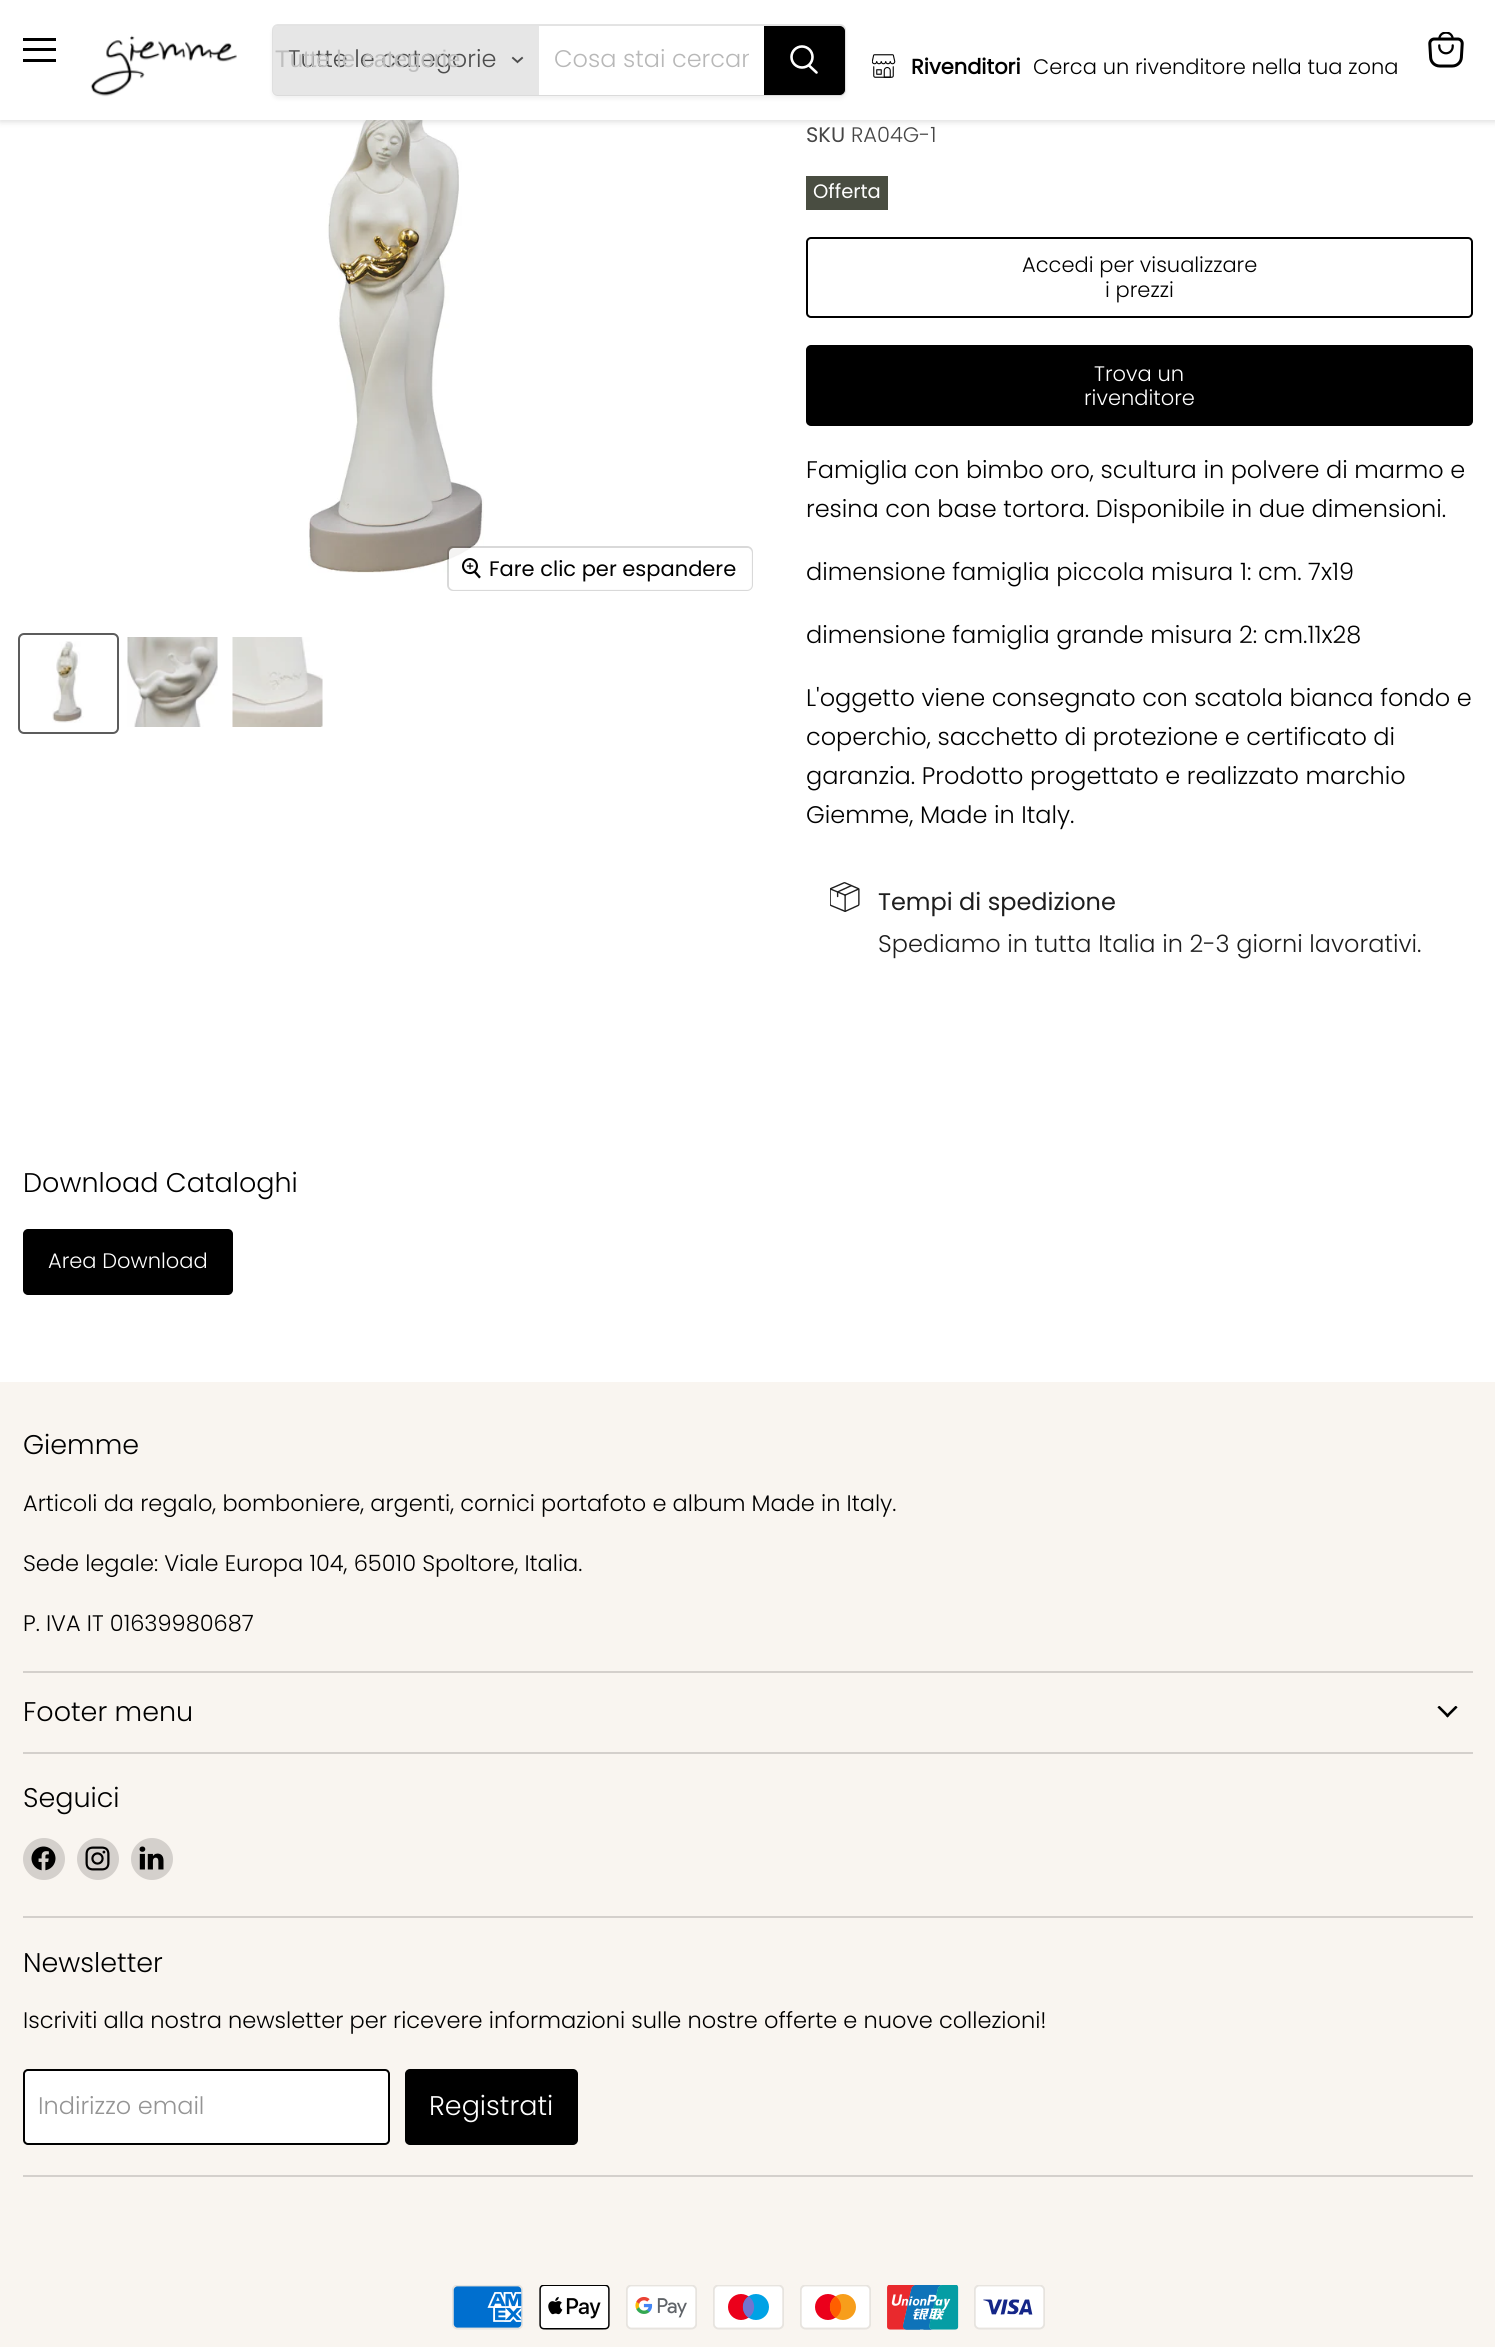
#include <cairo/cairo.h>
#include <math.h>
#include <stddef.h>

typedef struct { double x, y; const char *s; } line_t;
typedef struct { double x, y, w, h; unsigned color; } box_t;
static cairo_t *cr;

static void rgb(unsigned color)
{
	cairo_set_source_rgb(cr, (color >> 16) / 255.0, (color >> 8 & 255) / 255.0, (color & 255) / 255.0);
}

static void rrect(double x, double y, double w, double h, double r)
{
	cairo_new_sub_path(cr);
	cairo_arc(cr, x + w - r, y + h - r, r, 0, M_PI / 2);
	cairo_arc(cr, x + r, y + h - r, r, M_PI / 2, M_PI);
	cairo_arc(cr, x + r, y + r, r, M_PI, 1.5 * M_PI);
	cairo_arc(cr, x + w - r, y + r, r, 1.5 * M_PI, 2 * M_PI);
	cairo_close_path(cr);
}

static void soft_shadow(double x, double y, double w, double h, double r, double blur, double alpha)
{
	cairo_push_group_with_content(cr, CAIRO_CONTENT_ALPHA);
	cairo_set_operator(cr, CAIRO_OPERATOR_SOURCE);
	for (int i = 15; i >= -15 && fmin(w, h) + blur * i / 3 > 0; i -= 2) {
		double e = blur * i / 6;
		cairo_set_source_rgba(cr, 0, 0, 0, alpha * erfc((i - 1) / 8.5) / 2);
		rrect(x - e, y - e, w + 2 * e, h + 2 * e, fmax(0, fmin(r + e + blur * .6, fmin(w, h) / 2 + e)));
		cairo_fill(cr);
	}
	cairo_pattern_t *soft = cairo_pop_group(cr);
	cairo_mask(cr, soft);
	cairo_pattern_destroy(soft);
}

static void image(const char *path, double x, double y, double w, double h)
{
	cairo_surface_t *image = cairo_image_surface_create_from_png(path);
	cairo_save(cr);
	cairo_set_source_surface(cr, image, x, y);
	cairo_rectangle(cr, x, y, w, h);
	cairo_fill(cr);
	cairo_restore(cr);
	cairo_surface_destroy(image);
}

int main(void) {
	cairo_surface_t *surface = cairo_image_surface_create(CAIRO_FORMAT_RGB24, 1495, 2347);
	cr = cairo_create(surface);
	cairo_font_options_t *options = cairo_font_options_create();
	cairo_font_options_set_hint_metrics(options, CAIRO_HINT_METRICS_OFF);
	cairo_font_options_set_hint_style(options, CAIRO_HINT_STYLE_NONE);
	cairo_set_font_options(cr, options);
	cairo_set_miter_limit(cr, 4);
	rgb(0xffffff);
	cairo_paint(cr);
	image("img/4.png", 308, 120, 176, 453);
	rgb(0x808080);
	soft_shadow(0, 2, 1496, 120, 0, 3, 0.25);
	{
		static const box_t items[] = {
			{0, 0, 1495, 120, 0xffffff},
			{23, 38, 33, 3, 0x000000},
			{23, 48, 33, 3, 0x000000},
			{23, 59, 33, 3, 0x000000},
		};
		for (size_t i = 0; i < sizeof items / sizeof *items; i++) {
			rgb(items[i].color);
			cairo_rectangle(cr, items[i].x, items[i].y, items[i].w, items[i].h);
			cairo_fill(cr);
		}
	}
	image("img/1.png", 90, 35, 147, 62);
	rgb(0x808080);
	soft_shadow(272, 27, 574, 72, 6, 2, 0.11);
	rrect(273, 25, 572, 70, 5);
	cairo_set_source_rgba(cr, 0.502, 0.502, 0.502, 0.2);
	cairo_stroke(cr);
	rgb(0xe6e6e6);
	cairo_new_path(cr);
	cairo_move_to(cr, 278, 26);
	cairo_line_to(cr, 539, 26);
	cairo_line_to(cr, 539, 95);
	cairo_line_to(cr, 278, 95);
	cairo_curve_to(cr, 275, 95, 273, 93, 273, 90);
	cairo_line_to(cr, 273, 31);
	cairo_curve_to(cr, 273, 28, 275, 26, 278, 26);
	cairo_close_path(cr);
	cairo_fill(cr);
	cairo_new_path(cr);
	cairo_move_to(cr, 517.5, 62);
	cairo_line_to(cr, 522, 58);
	cairo_move_to(cr, 517.5, 62);
	cairo_line_to(cr, 513, 58);
	rgb(0x4d4d4d);
	cairo_set_line_width(cr, 1.9);
	cairo_set_line_cap(cr, CAIRO_LINE_CAP_SQUARE);
	cairo_stroke(cr);
	rgb(0xffffff);
	cairo_rectangle(cr, 539, 26, 225, 69);
	cairo_fill(cr);
	rgb(0x000000);
	cairo_new_path(cr);
	cairo_move_to(cr, 765, 27);
	cairo_line_to(cr, 840, 27);
	cairo_curve_to(cr, 842, 27, 844, 29, 844, 31);
	cairo_line_to(cr, 844, 90);
	cairo_curve_to(cr, 844, 92, 842, 94, 840, 94);
	cairo_line_to(cr, 765, 94);
	cairo_close_path(cr);
	cairo_fill_preserve(cr);
	cairo_set_line_width(cr, 2);
	cairo_set_line_cap(cr, CAIRO_LINE_CAP_BUTT);
	cairo_stroke(cr);
	cairo_new_path(cr);
	cairo_move_to(cr, 816.5, 72.5);
	cairo_line_to(cr, 809, 65.5);
	rgb(0xffffff);
	cairo_set_line_width(cr, 2.6);
	cairo_set_line_cap(cr, CAIRO_LINE_CAP_ROUND);
	cairo_stroke(cr);
	cairo_arc(cr, 802, 57, 10.5, 0, 2 * M_PI);
	cairo_set_line_cap(cr, CAIRO_LINE_CAP_BUTT);
	cairo_stroke(cr);
	image("img/2.png", 872, 54, 24, 24);
	image("img/3.png", 1428, 32, 36, 36);
	rrect(448, 547, 304, 43, 5);
	cairo_set_source_rgba(cr, 0, 0, 0, 0.15);
	cairo_set_line_width(cr, 2);
	cairo_stroke(cr);
	cairo_set_source_rgba(cr, 1, 1, 1, 0.9);
	rrect(449, 548, 303, 42, 5);
	cairo_fill(cr);
	image("img/5.png", 462, 558, 19, 21);
	rrect(19, 634, 99, 99, 5);
	rgb(0x5c5c5c);
	cairo_stroke(cr);
	image("img/6.png", 52, 641, 32, 82);
	image("img/7.png", 127, 637, 91, 90);
	image("img/8.png", 232, 637, 91, 90);
	rgb(0x494d41);
	cairo_rectangle(cr, 806, 176, 82, 34);
	cairo_fill(cr);
	rrect(807, 238, 665, 79, 4);
	rgb(0x000000);
	cairo_stroke(cr);
	rrect(807, 346, 665, 79, 4);
	cairo_fill_preserve(cr);
	cairo_stroke(cr);
	image("img/9.png", 830, 882, 30, 30);
	rrect(24, 1230, 208, 64, 4);
	cairo_fill_preserve(cr);
	cairo_stroke(cr);
	{
		static const box_t items[] = {
			{0, 1382, 1495, 965, 0xf9f5f0},
			{23, 1671, 1450, 2, 0xd4d0cc},
			{23, 1752, 1450, 2, 0xd4d0cc},
		};
		for (size_t i = 0; i < sizeof items / sizeof *items; i++) {
			rgb(items[i].color);
			cairo_rectangle(cr, items[i].x, items[i].y, items[i].w, items[i].h);
			cairo_fill(cr);
		}
	}
	image("img/10.png", 1437, 1706, 21, 12);
	cairo_rectangle(cr, 23, 1916, 1450, 2);
	cairo_fill(cr);
	cairo_arc(cr, 44, 1859, 21, 0, 2 * M_PI);
	cairo_fill(cr);
	image("img/11.png", 31, 1846, 25, 25);
	cairo_arc(cr, 98, 1859, 21, 0, 2 * M_PI);
	cairo_fill(cr);
	image("img/12.png", 85, 1846, 25, 25);
	cairo_arc(cr, 152, 1859, 21, 0, 2 * M_PI);
	cairo_fill(cr);
	image("img/13.png", 139, 1846, 25, 24);
	cairo_rectangle(cr, 23, 2175, 1450, 2);
	cairo_fill(cr);
	rgb(0xffffff);
	rrect(24, 2070, 365, 74, 4);
	cairo_fill_preserve(cr);
	rgb(0x000000);
	cairo_stroke(cr);
	rrect(406, 2070, 171, 74, 4);
	cairo_fill_preserve(cr);
	cairo_stroke(cr);
	image("img/14.png", 452, 2285, 71, 45);
	image("img/15.png", 539, 2285, 71, 45);
	image("img/16.png", 626, 2285, 71, 45);
	image("img/17.png", 713, 2285, 71, 45);
	image("img/18.png", 800, 2285, 71, 45);
	image("img/19.png", 887, 2285, 72, 45);
	image("img/20.png", 974, 2285, 71, 45);
	cairo_select_font_face(cr, "Poppins Light", CAIRO_FONT_SLANT_NORMAL, CAIRO_FONT_WEIGHT_NORMAL);
	cairo_set_font_size(cr, 24);
	rgb(0x4d4d4d);
	cairo_move_to(cr, 288, 67);
	cairo_show_text(cr, "Tutte le categorie");
	cairo_select_font_face(cr, "Liberation Sans", CAIRO_FONT_SLANT_NORMAL, CAIRO_FONT_WEIGHT_NORMAL);
	rgb(0xbebebe);
	cairo_move_to(cr, 275, 67);
	cairo_show_text(cr, "Tutte le categorie");
	cairo_save(cr);
	cairo_rectangle(cr, 554, 41, 195, 37);
	cairo_clip(cr);
	cairo_select_font_face(cr, "Poppins Light", CAIRO_FONT_SLANT_NORMAL, CAIRO_FONT_WEIGHT_NORMAL);
	rgb(0xb8b8b8);
	cairo_move_to(cr, 554, 67);
	cairo_show_text(cr, "Cosa stai cercan");
	cairo_restore(cr);
	cairo_select_font_face(cr, "Poppins", CAIRO_FONT_SLANT_NORMAL, CAIRO_FONT_WEIGHT_BOLD);
	cairo_set_font_size(cr, 21);
	rgb(0x000000);
	cairo_move_to(cr, 911, 74);
	cairo_show_text(cr, "Rivenditori");
	cairo_select_font_face(cr, "Poppins Light", CAIRO_FONT_SLANT_NORMAL, CAIRO_FONT_WEIGHT_NORMAL);
	cairo_move_to(cr, 1033, 74);
	cairo_show_text(cr, "Cerca un rivenditore nella tua zona");
	cairo_select_font_face(cr, "Poppins", CAIRO_FONT_SLANT_NORMAL, CAIRO_FONT_WEIGHT_NORMAL);
	cairo_move_to(cr, 489, 576);
	cairo_show_text(cr, "Fare clic per espandere");
	rgb(0x464646);
	cairo_move_to(cr, 806, 142);
	cairo_show_text(cr, "SKU");
	cairo_select_font_face(cr, "Poppins Light", CAIRO_FONT_SLANT_NORMAL, CAIRO_FONT_WEIGHT_NORMAL);
	cairo_move_to(cr, 851, 142);
	cairo_show_text(cr, "RA04G-1");
	cairo_select_font_face(cr, "Poppins", CAIRO_FONT_SLANT_NORMAL, CAIRO_FONT_WEIGHT_NORMAL);
	cairo_set_font_size(cr, 19.5);
	rgb(0xffffff);
	cairo_move_to(cr, 813, 198);
	cairo_show_text(cr, "Offerta");
	cairo_select_font_face(cr, "Poppins Light", CAIRO_FONT_SLANT_NORMAL, CAIRO_FONT_WEIGHT_NORMAL);
	cairo_set_font_size(cr, 21);
	rgb(0x000000);
	cairo_move_to(cr, 1022, 272);
	cairo_show_text(cr, "Accedi per visualizzare");
	cairo_move_to(cr, 1105, 297);
	cairo_show_text(cr, "i prezzi");
	rgb(0xffffff);
	cairo_move_to(cr, 1094, 381);
	cairo_show_text(cr, "Trova un");
	cairo_move_to(cr, 1084, 405);
	cairo_show_text(cr, "rivenditore");
	cairo_set_font_size(cr, 24);
	rgb(0x000000);
	{
		static const line_t items[] = {
			{806, 478, "Famiglia con bimbo oro, scultura in polvere di marmo e"},
			{806, 517, "resina con base tortora. Disponibile in due dimensioni."},
			{806, 580, "dimensione famiglia piccola misura 1: cm. 7x19"},
			{806, 643, "dimensione famiglia grande misura 2: cm.11x28"},
			{806, 706, "L'oggetto viene consegnato con scatola bianca fondo e"},
			{806, 745, "coperchio, sacchetto di protezione e certificato di"},
			{806, 784, "garanzia. Prodotto progettato e realizzato marchio"},
			{806, 823, "Giemme, Made in Italy."},
		};
		for (size_t i = 0; i < sizeof items / sizeof *items; i++) {
			cairo_move_to(cr, items[i].x, items[i].y);
			cairo_show_text(cr, items[i].s);
		}
	}
	cairo_select_font_face(cr, "Poppins", CAIRO_FONT_SLANT_NORMAL, CAIRO_FONT_WEIGHT_NORMAL);
	rgb(0x1d1d1d);
	cairo_move_to(cr, 878, 910);
	cairo_show_text(cr, "Tempi di spedizione");
	cairo_select_font_face(cr, "Poppins Light", CAIRO_FONT_SLANT_NORMAL, CAIRO_FONT_WEIGHT_NORMAL);
	cairo_move_to(cr, 878, 952);
	cairo_show_text(cr, "Spediamo in tutta Italia in 2-3 giorni lavorativi.");
	cairo_set_font_size(cr, 27);
	rgb(0x000000);
	cairo_move_to(cr, 23, 1192);
	cairo_show_text(cr, "Download Cataloghi");
	cairo_set_font_size(cr, 21);
	rgb(0xffffff);
	cairo_move_to(cr, 48, 1268);
	cairo_show_text(cr, "Area Download");
	cairo_set_font_size(cr, 27);
	rgb(0x000000);
	cairo_move_to(cr, 23, 1454);
	cairo_show_text(cr, "Giemme");
	cairo_set_font_size(cr, 22.5);
	{
		static const line_t items[] = {
			{23, 1511, "Articoli da regalo, bomboniere, argenti, cornici portafoto e album Made in Italy."},
			{23, 1571, "Sede legale: Viale Europa 104, 65010 Spoltore, Italia."},
			{23, 1631, "P. IVA IT 01639980687"},
		};
		for (size_t i = 0; i < sizeof items / sizeof *items; i++) {
			cairo_move_to(cr, items[i].x, items[i].y);
			cairo_show_text(cr, items[i].s);
		}
	}
	cairo_set_font_size(cr, 27);
	{
		static const line_t items[] = {
			{23, 1721, "Footer menu"},
			{23, 1807, "Seguici"},
			{23, 1972, "Newsletter"},
		};
		for (size_t i = 0; i < sizeof items / sizeof *items; i++) {
			cairo_move_to(cr, items[i].x, items[i].y);
			cairo_show_text(cr, items[i].s);
		}
	}
	cairo_set_font_size(cr, 22.5);
	cairo_move_to(cr, 23, 2028);
	cairo_show_text(cr, "Iscriviti alla nostra newsletter per ricevere informazioni sulle nostre offerte e nuove collezioni!");
	cairo_set_font_size(cr, 24);
	rgb(0x949494);
	cairo_move_to(cr, 38, 2114);
	cairo_show_text(cr, "Indirizzo email");
	cairo_set_font_size(cr, 27);
	rgb(0xffffff);
	cairo_move_to(cr, 429, 2115);
	cairo_show_text(cr, "Registrati");
	cairo_surface_write_to_png(surface, "page.png");
	cairo_font_options_destroy(options);
	cairo_destroy(cr);
	cairo_surface_destroy(surface);
	return 0;
}
